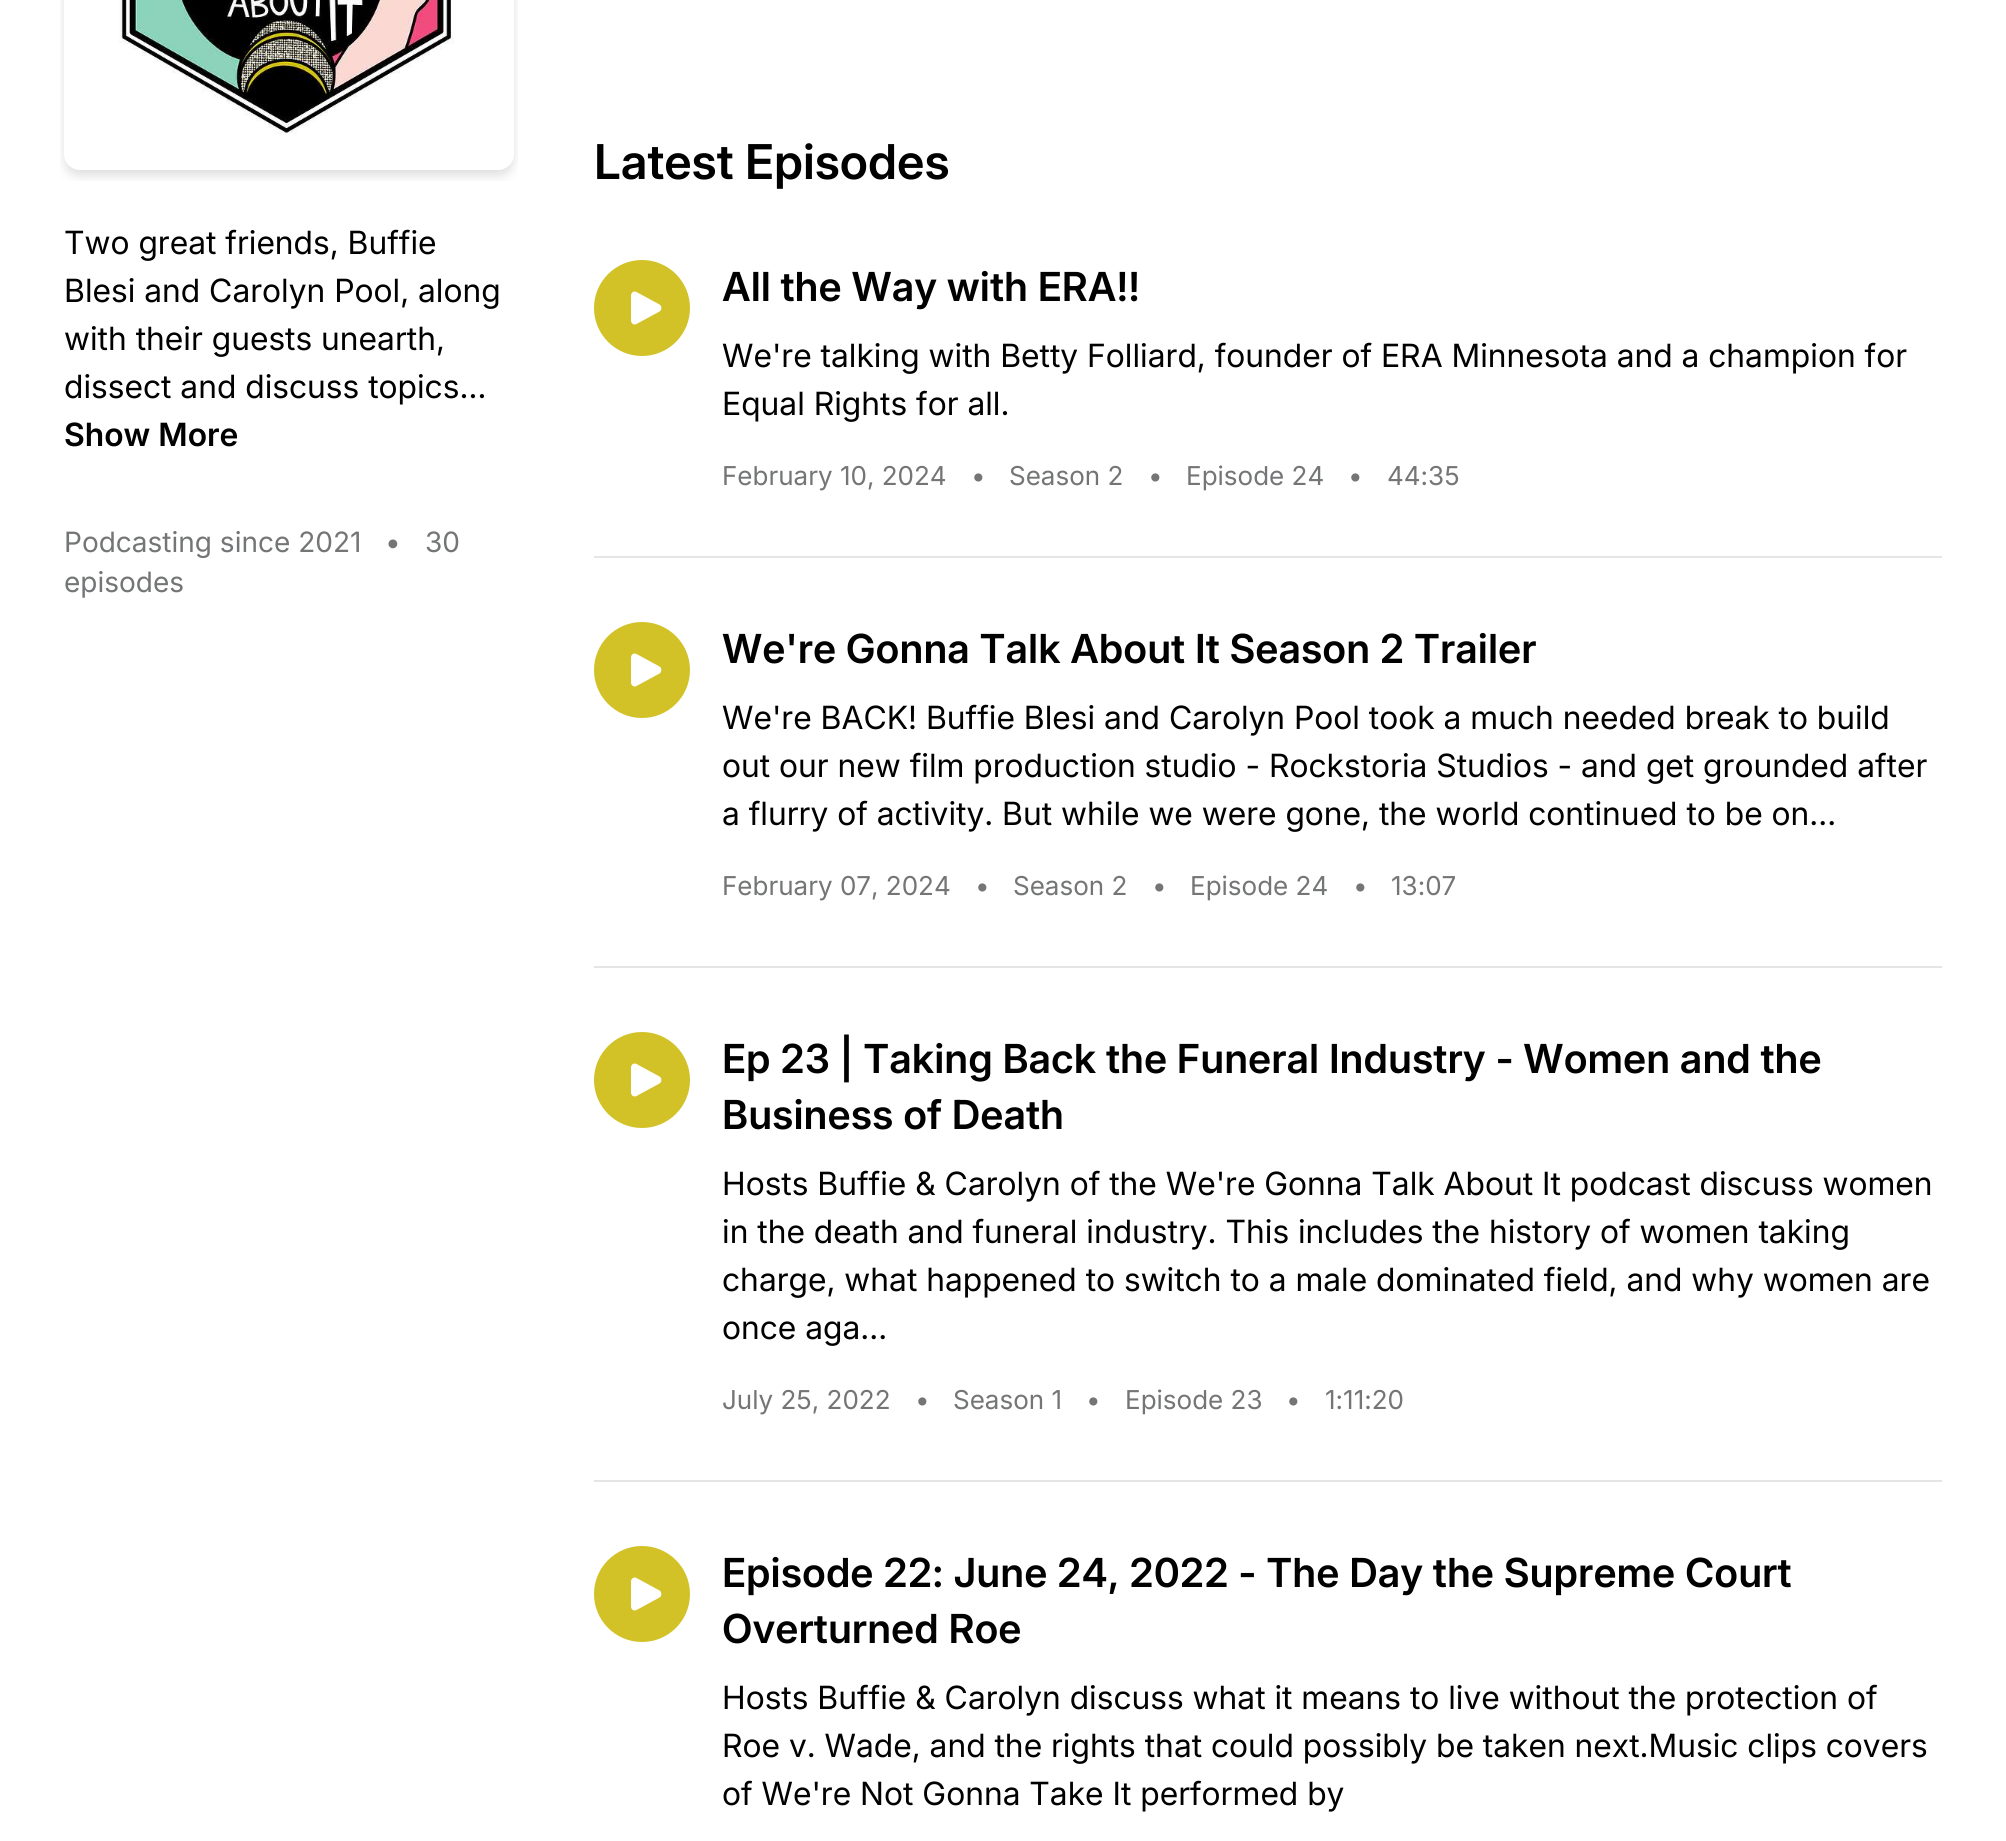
#include <cairo/cairo.h>
#include <math.h>
#include <stddef.h>

typedef struct { double x, y; const char *s; } line_t;
static cairo_t *cr;

static void rgb(unsigned color)
{
	cairo_set_source_rgb(cr, (color >> 16) / 255.0, (color >> 8 & 255) / 255.0, (color & 255) / 255.0);
}

static void image(const char *path, double x, double y, double w, double h)
{
	cairo_surface_t *image = cairo_image_surface_create_from_png(path);
	cairo_save(cr);
	cairo_set_source_surface(cr, image, x, y);
	cairo_rectangle(cr, x, y, w, h);
	cairo_fill(cr);
	cairo_restore(cr);
	cairo_surface_destroy(image);
}

int main(void) {
	cairo_surface_t *surface = cairo_image_surface_create(CAIRO_FORMAT_RGB24, 2006, 1841);
	cr = cairo_create(surface);
	cairo_font_options_t *options = cairo_font_options_create();
	cairo_font_options_set_hint_metrics(options, CAIRO_HINT_METRICS_OFF);
	cairo_font_options_set_hint_style(options, CAIRO_HINT_STYLE_NONE);
	cairo_set_font_options(cr, options);
	cairo_set_miter_limit(cr, 4);
	rgb(0xffffff);
	cairo_paint(cr);
	image("img/1.png", 60, 0, 458, 181);
	rgb(0xd2c227);
	cairo_arc(cr, 642, 308, 48, 0, 2 * M_PI);
	cairo_fill(cr);
	rgb(0xffffff);
	cairo_set_fill_rule(cr, CAIRO_FILL_RULE_EVEN_ODD);
	cairo_new_path(cr);
	cairo_move_to(cr, 631, 295.5);
	cairo_curve_to(cr, 631, 292.5, 634, 290.5, 636.5, 292);
	cairo_line_to(cr, 659.5, 304.5);
	cairo_curve_to(cr, 662, 306, 662, 310, 659.5, 311.5);
	cairo_line_to(cr, 636.5, 324);
	cairo_curve_to(cr, 634, 325.5, 631, 323.5, 631, 320.5);
	cairo_close_path(cr);
	cairo_fill(cr);
	rgb(0xe4e5e6);
	cairo_rectangle(cr, 594, 556, 1348, 2);
	cairo_fill(cr);
	rgb(0xd2c227);
	cairo_arc(cr, 642, 670, 48, 0, 2 * M_PI);
	cairo_fill(cr);
	rgb(0xffffff);
	cairo_new_path(cr);
	cairo_move_to(cr, 631, 657.5);
	cairo_curve_to(cr, 631, 654.5, 634, 652.5, 636.5, 654);
	cairo_line_to(cr, 659.5, 666.5);
	cairo_curve_to(cr, 662, 668, 662, 672, 659.5, 673.5);
	cairo_line_to(cr, 636.5, 686);
	cairo_curve_to(cr, 634, 687.5, 631, 685.5, 631, 682.5);
	cairo_close_path(cr);
	cairo_fill(cr);
	rgb(0xe4e5e6);
	cairo_rectangle(cr, 594, 966, 1348, 2);
	cairo_fill(cr);
	rgb(0xd2c227);
	cairo_arc(cr, 642, 1080, 48, 0, 2 * M_PI);
	cairo_fill(cr);
	rgb(0xffffff);
	cairo_new_path(cr);
	cairo_move_to(cr, 631, 1067.5);
	cairo_curve_to(cr, 631, 1064.5, 634, 1062.5, 636.5, 1064);
	cairo_line_to(cr, 659.5, 1076.5);
	cairo_curve_to(cr, 662, 1078, 662, 1082, 659.5, 1083.5);
	cairo_line_to(cr, 636.5, 1096);
	cairo_curve_to(cr, 634, 1097.5, 631, 1095.5, 631, 1092.5);
	cairo_close_path(cr);
	cairo_fill(cr);
	rgb(0xe4e5e6);
	cairo_rectangle(cr, 594, 1480, 1348, 2);
	cairo_fill(cr);
	rgb(0xd2c227);
	cairo_arc(cr, 642, 1594, 48, 0, 2 * M_PI);
	cairo_fill(cr);
	rgb(0xffffff);
	cairo_new_path(cr);
	cairo_move_to(cr, 631, 1581.5);
	cairo_curve_to(cr, 631, 1578.5, 634, 1576.5, 636.5, 1578);
	cairo_line_to(cr, 659.5, 1590.5);
	cairo_curve_to(cr, 662, 1592, 662, 1596, 659.5, 1597.5);
	cairo_line_to(cr, 636.5, 1610);
	cairo_curve_to(cr, 634, 1611.5, 631, 1609.5, 631, 1606.5);
	cairo_close_path(cr);
	cairo_fill(cr);
	cairo_select_font_face(cr, "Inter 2", CAIRO_FONT_SLANT_NORMAL, CAIRO_FONT_WEIGHT_NORMAL);
	cairo_set_font_size(cr, 32);
	rgb(0x000000);
	{
		static const line_t items[] = {
			{64, 254, "Two great friends, Buffie"},
			{64, 302, "Blesi and Carolyn Pool, along"},
			{64, 350, "with their guests unearth,"},
			{64, 398, "dissect and discuss topics…"},
		};
		for (size_t i = 0; i < sizeof items / sizeof *items; i++) {
			cairo_move_to(cr, items[i].x, items[i].y);
			cairo_show_text(cr, items[i].s);
		}
	}
	cairo_select_font_face(cr, "Inter SemiBold", CAIRO_FONT_SLANT_NORMAL, CAIRO_FONT_WEIGHT_NORMAL);
	cairo_move_to(cr, 64, 446);
	cairo_show_text(cr, "Show More");
	cairo_select_font_face(cr, "Inter", CAIRO_FONT_SLANT_NORMAL, CAIRO_FONT_WEIGHT_NORMAL);
	cairo_set_font_size(cr, 28);
	rgb(0x747576);
	{
		static const line_t items[] = {
			{64, 552, "Podcasting since 2021"},
			{385, 552, "•"},
			{425, 552, "30"},
			{64, 592, "episodes"},
		};
		for (size_t i = 0; i < sizeof items / sizeof *items; i++) {
			cairo_move_to(cr, items[i].x, items[i].y);
			cairo_show_text(cr, items[i].s);
		}
	}
	cairo_select_font_face(cr, "Inter 2 SemiBold", CAIRO_FONT_SLANT_NORMAL, CAIRO_FONT_WEIGHT_NORMAL);
	cairo_set_font_size(cr, 48);
	rgb(0x000000);
	cairo_move_to(cr, 594, 179);
	cairo_show_text(cr, "Latest Episodes");
	cairo_select_font_face(cr, "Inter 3 SemiBold", CAIRO_FONT_SLANT_NORMAL, CAIRO_FONT_WEIGHT_NORMAL);
	cairo_set_font_size(cr, 40);
	cairo_move_to(cr, 722, 301);
	cairo_show_text(cr, "All the Way with ERA!!");
	cairo_select_font_face(cr, "Inter 2", CAIRO_FONT_SLANT_NORMAL, CAIRO_FONT_WEIGHT_NORMAL);
	cairo_set_font_size(cr, 32);
	cairo_move_to(cr, 722, 367);
	cairo_show_text(cr, "We're talking with Betty Folliard, founder of ERA Minnesota and a champion for");
	cairo_move_to(cr, 722, 415);
	cairo_show_text(cr, "Equal Rights for all.");
	cairo_select_font_face(cr, "Inter", CAIRO_FONT_SLANT_NORMAL, CAIRO_FONT_WEIGHT_NORMAL);
	cairo_set_font_size(cr, 26);
	rgb(0x747576);
	{
		static const line_t items[] = {
			{722, 485, "February 10, 2024"},
			{971, 485, "•"},
			{1009, 485, "Season 2"},
			{1148, 485, "•"},
			{1186, 485, "Episode 24"},
			{1348, 485, "•"},
			{1387, 485, "44:35"},
		};
		for (size_t i = 0; i < sizeof items / sizeof *items; i++) {
			cairo_move_to(cr, items[i].x, items[i].y);
			cairo_show_text(cr, items[i].s);
		}
	}
	cairo_select_font_face(cr, "Inter 3 SemiBold", CAIRO_FONT_SLANT_NORMAL, CAIRO_FONT_WEIGHT_NORMAL);
	cairo_set_font_size(cr, 40);
	rgb(0x000000);
	cairo_move_to(cr, 722, 663);
	cairo_show_text(cr, "We're Gonna Talk About It Season 2 Trailer");
	cairo_select_font_face(cr, "Inter 2", CAIRO_FONT_SLANT_NORMAL, CAIRO_FONT_WEIGHT_NORMAL);
	cairo_set_font_size(cr, 32);
	{
		static const line_t items[] = {
			{722, 729, "We're BACK! Buffie Blesi and Carolyn Pool took a much needed break to build"},
			{722, 777, "out our new film production studio - Rockstoria Studios - and get grounded after"},
			{722, 825, "a flurry of activity. But while we were gone, the world continued to be on..."},
		};
		for (size_t i = 0; i < sizeof items / sizeof *items; i++) {
			cairo_move_to(cr, items[i].x, items[i].y);
			cairo_show_text(cr, items[i].s);
		}
	}
	cairo_select_font_face(cr, "Inter", CAIRO_FONT_SLANT_NORMAL, CAIRO_FONT_WEIGHT_NORMAL);
	cairo_set_font_size(cr, 26);
	rgb(0x747576);
	{
		static const line_t items[] = {
			{722, 895, "February 07, 2024"},
			{975, 895, "•"},
			{1013, 895, "Season 2"},
			{1152, 895, "•"},
			{1190, 895, "Episode 24"},
			{1353, 895, "•"},
			{1391, 895, "13:07"},
		};
		for (size_t i = 0; i < sizeof items / sizeof *items; i++) {
			cairo_move_to(cr, items[i].x, items[i].y);
			cairo_show_text(cr, items[i].s);
		}
	}
	cairo_select_font_face(cr, "Inter 3 SemiBold", CAIRO_FONT_SLANT_NORMAL, CAIRO_FONT_WEIGHT_NORMAL);
	cairo_set_font_size(cr, 40);
	rgb(0x000000);
	cairo_move_to(cr, 722, 1073);
	cairo_show_text(cr, "Ep 23 | Taking Back the Funeral Industry - Women and the");
	cairo_move_to(cr, 722, 1129);
	cairo_show_text(cr, "Business of Death");
	cairo_select_font_face(cr, "Inter 2", CAIRO_FONT_SLANT_NORMAL, CAIRO_FONT_WEIGHT_NORMAL);
	cairo_set_font_size(cr, 32);
	{
		static const line_t items[] = {
			{722, 1195, "Hosts Buffie & Carolyn of the We're Gonna Talk About It podcast discuss women"},
			{722, 1243, "in the death and funeral industry. This includes the history of women taking"},
			{722, 1291, "charge, what happened to switch to a male dominated field, and why women are"},
			{722, 1339, "once aga..."},
		};
		for (size_t i = 0; i < sizeof items / sizeof *items; i++) {
			cairo_move_to(cr, items[i].x, items[i].y);
			cairo_show_text(cr, items[i].s);
		}
	}
	cairo_select_font_face(cr, "Inter", CAIRO_FONT_SLANT_NORMAL, CAIRO_FONT_WEIGHT_NORMAL);
	cairo_set_font_size(cr, 26);
	rgb(0x747576);
	{
		static const line_t items[] = {
			{722, 1409, "July 25, 2022"},
			{915, 1409, "•"},
			{953, 1409, "Season 1"},
			{1086, 1409, "•"},
			{1125, 1409, "Episode 23"},
			{1286, 1409, "•"},
			{1325, 1409, "1:11:20"},
		};
		for (size_t i = 0; i < sizeof items / sizeof *items; i++) {
			cairo_move_to(cr, items[i].x, items[i].y);
			cairo_show_text(cr, items[i].s);
		}
	}
	cairo_select_font_face(cr, "Inter 3 SemiBold", CAIRO_FONT_SLANT_NORMAL, CAIRO_FONT_WEIGHT_NORMAL);
	cairo_set_font_size(cr, 40);
	rgb(0x000000);
	cairo_move_to(cr, 722, 1587);
	cairo_show_text(cr, "Episode 22: June 24, 2022 - The Day the Supreme Court");
	cairo_move_to(cr, 722, 1643);
	cairo_show_text(cr, "Overturned Roe");
	cairo_select_font_face(cr, "Inter 2", CAIRO_FONT_SLANT_NORMAL, CAIRO_FONT_WEIGHT_NORMAL);
	cairo_set_font_size(cr, 32);
	{
		static const line_t items[] = {
			{722, 1709, "Hosts Buffie & Carolyn discuss what it means to live without the protection of"},
			{722, 1757, "Roe v. Wade, and the rights that could possibly be taken next.Music clips covers"},
			{722, 1805, "of We're Not Gonna Take It performed by"},
		};
		for (size_t i = 0; i < sizeof items / sizeof *items; i++) {
			cairo_move_to(cr, items[i].x, items[i].y);
			cairo_show_text(cr, items[i].s);
		}
	}
	cairo_surface_write_to_png(surface, "page.png");
	cairo_font_options_destroy(options);
	cairo_destroy(cr);
	cairo_surface_destroy(surface);
	return 0;
}
